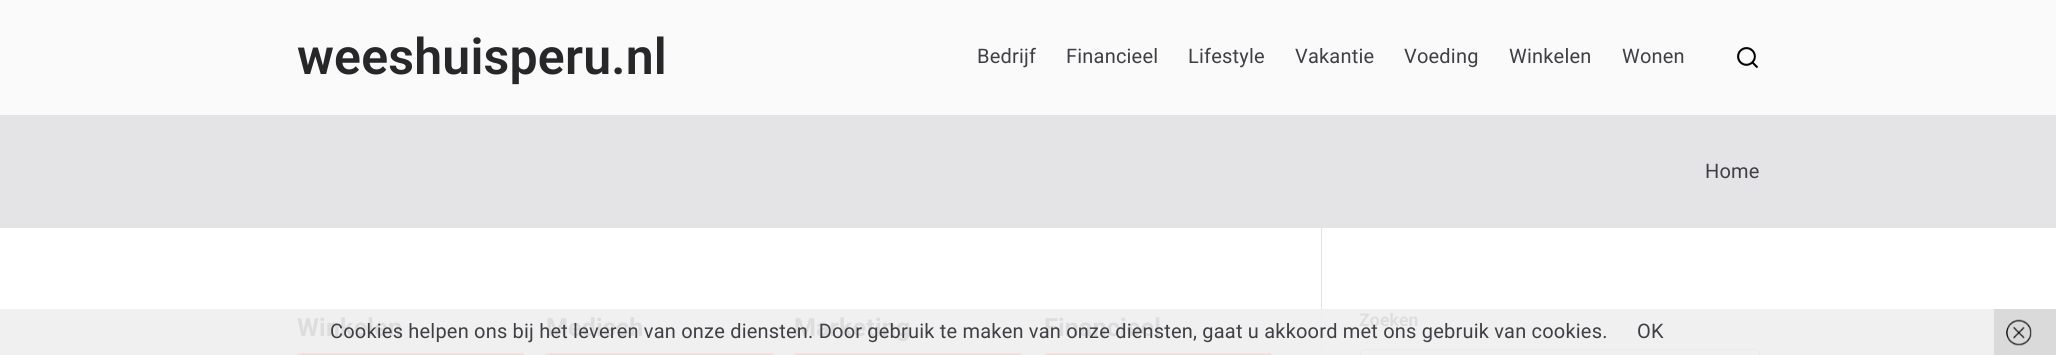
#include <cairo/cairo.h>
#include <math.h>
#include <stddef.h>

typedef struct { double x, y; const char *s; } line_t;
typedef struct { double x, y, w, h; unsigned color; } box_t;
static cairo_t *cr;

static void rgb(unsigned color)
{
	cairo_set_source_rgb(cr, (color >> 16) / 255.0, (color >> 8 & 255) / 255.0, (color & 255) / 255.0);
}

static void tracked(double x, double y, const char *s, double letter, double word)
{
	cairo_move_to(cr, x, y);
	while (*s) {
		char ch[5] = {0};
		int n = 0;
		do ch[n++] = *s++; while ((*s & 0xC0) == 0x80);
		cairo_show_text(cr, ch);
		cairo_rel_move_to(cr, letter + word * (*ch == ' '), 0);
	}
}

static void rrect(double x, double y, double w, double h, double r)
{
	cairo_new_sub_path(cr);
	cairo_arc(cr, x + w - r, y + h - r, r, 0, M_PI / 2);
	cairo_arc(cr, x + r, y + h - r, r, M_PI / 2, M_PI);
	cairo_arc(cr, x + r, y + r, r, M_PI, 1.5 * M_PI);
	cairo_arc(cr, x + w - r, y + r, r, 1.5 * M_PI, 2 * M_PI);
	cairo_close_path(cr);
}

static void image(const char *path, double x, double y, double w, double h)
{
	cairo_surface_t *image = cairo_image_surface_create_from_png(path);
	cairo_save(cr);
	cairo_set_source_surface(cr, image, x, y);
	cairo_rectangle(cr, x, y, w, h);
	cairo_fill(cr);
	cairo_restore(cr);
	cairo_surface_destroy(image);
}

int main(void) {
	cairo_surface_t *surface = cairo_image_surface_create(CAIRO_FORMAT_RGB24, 2056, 355);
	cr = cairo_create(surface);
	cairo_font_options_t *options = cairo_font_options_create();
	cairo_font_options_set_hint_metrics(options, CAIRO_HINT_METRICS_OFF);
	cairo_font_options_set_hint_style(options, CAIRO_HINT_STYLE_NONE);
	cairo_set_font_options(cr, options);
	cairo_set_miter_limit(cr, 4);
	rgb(0xfafafa);
	cairo_paint(cr);
	rgb(0xe4e4e7);
	cairo_rectangle(cr, 0, 115, 2056, 113);
	cairo_fill(cr);
	image("img/1.png", 1737, 47, 21, 21);
	{
		static const box_t items[] = {
			{0, 228, 2056, 81, 0xffffff},
			{0, 309, 1994, 46, 0xf0f0f0},
			{298, 353, 226, 2, 0xefe1e0},
			{546, 353, 227, 2, 0xefe1e0},
			{795, 353, 226, 2, 0xefe1e0},
			{1045, 353, 226, 2, 0xefe1e0},
			{1321, 228, 1, 81, 0xe4e4e7},
			{1321, 309, 1, 46, 0xededed},
		};
		for (size_t i = 0; i < sizeof items / sizeof *items; i++) {
			rgb(items[i].color);
			cairo_rectangle(cr, items[i].x, items[i].y, items[i].w, items[i].h);
			cairo_fill(cr);
		}
	}
	rrect(1360.5, 349.5, 399, 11, 4.5);
	rgb(0xebebec);
	cairo_set_line_width(cr, 1);
	cairo_stroke(cr);
	rgb(0xdadada);
	cairo_rectangle(cr, 1994, 309, 62, 46);
	cairo_fill(cr);
	image("img/2.png", 2006, 319, 26, 27);
	cairo_select_font_face(cr, "Roboto SemiBold", CAIRO_FONT_SLANT_NORMAL, CAIRO_FONT_WEIGHT_NORMAL);
	cairo_set_font_size(cr, 50);
	rgb(0x27272a);
	tracked(297, 74, "weeshuisperu.nl", 0.2, 0);
	cairo_select_font_face(cr, "Roboto", CAIRO_FONT_SLANT_NORMAL, CAIRO_FONT_WEIGHT_NORMAL);
	cairo_set_font_size(cr, 20);
	rgb(0x3f3f46);
	{
		static const line_t items[] = {
			{977, 63, "Bedrijf"},
			{1066, 63, "Financieel"},
			{1188, 63, "Lifestyle"},
			{1295, 63, "Vakantie"},
			{1404, 63, "Voeding"},
			{1509, 63, "Winkelen"},
			{1622, 63, "Wonen"},
			{1705, 178, "Home"},
		};
		for (size_t i = 0; i < sizeof items / sizeof *items; i++) {
			tracked(items[i].x, items[i].y, items[i].s, 0.2, 0);
		}
	}
	cairo_select_font_face(cr, "Roboto", CAIRO_FONT_SLANT_NORMAL, CAIRO_FONT_WEIGHT_BOLD);
	cairo_set_font_size(cr, 25);
	rgb(0xdddddd);
	{
		static const line_t items[] = {
			{297, 336, "Winkelen"},
			{546, 336, "Medisch"},
			{794, 336, "Marketing"},
			{1044, 336, "Financieel"},
		};
		for (size_t i = 0; i < sizeof items / sizeof *items; i++) {
			tracked(items[i].x, items[i].y, items[i].s, 0.2, 0);
		}
	}
	cairo_select_font_face(cr, "Roboto SemiBold", CAIRO_FONT_SLANT_NORMAL, CAIRO_FONT_WEIGHT_NORMAL);
	cairo_set_font_size(cr, 17.5);
	tracked(1359, 326, "Zoeken", 0.2, 0);
	cairo_select_font_face(cr, "Roboto", CAIRO_FONT_SLANT_NORMAL, CAIRO_FONT_WEIGHT_NORMAL);
	cairo_set_font_size(cr, 20);
	rgb(0x3f3f46);
	tracked(330, 338, "Cookies helpen ons bij het leveren van onze diensten. Door gebruik te maken van onze diensten, gaat u akkoord met ons gebruik van cookies.", 0.2, 0);
	tracked(1637, 338, "OK", 0.2, 0);
	cairo_surface_write_to_png(surface, "page.png");
	cairo_font_options_destroy(options);
	cairo_destroy(cr);
	cairo_surface_destroy(surface);
	return 0;
}
